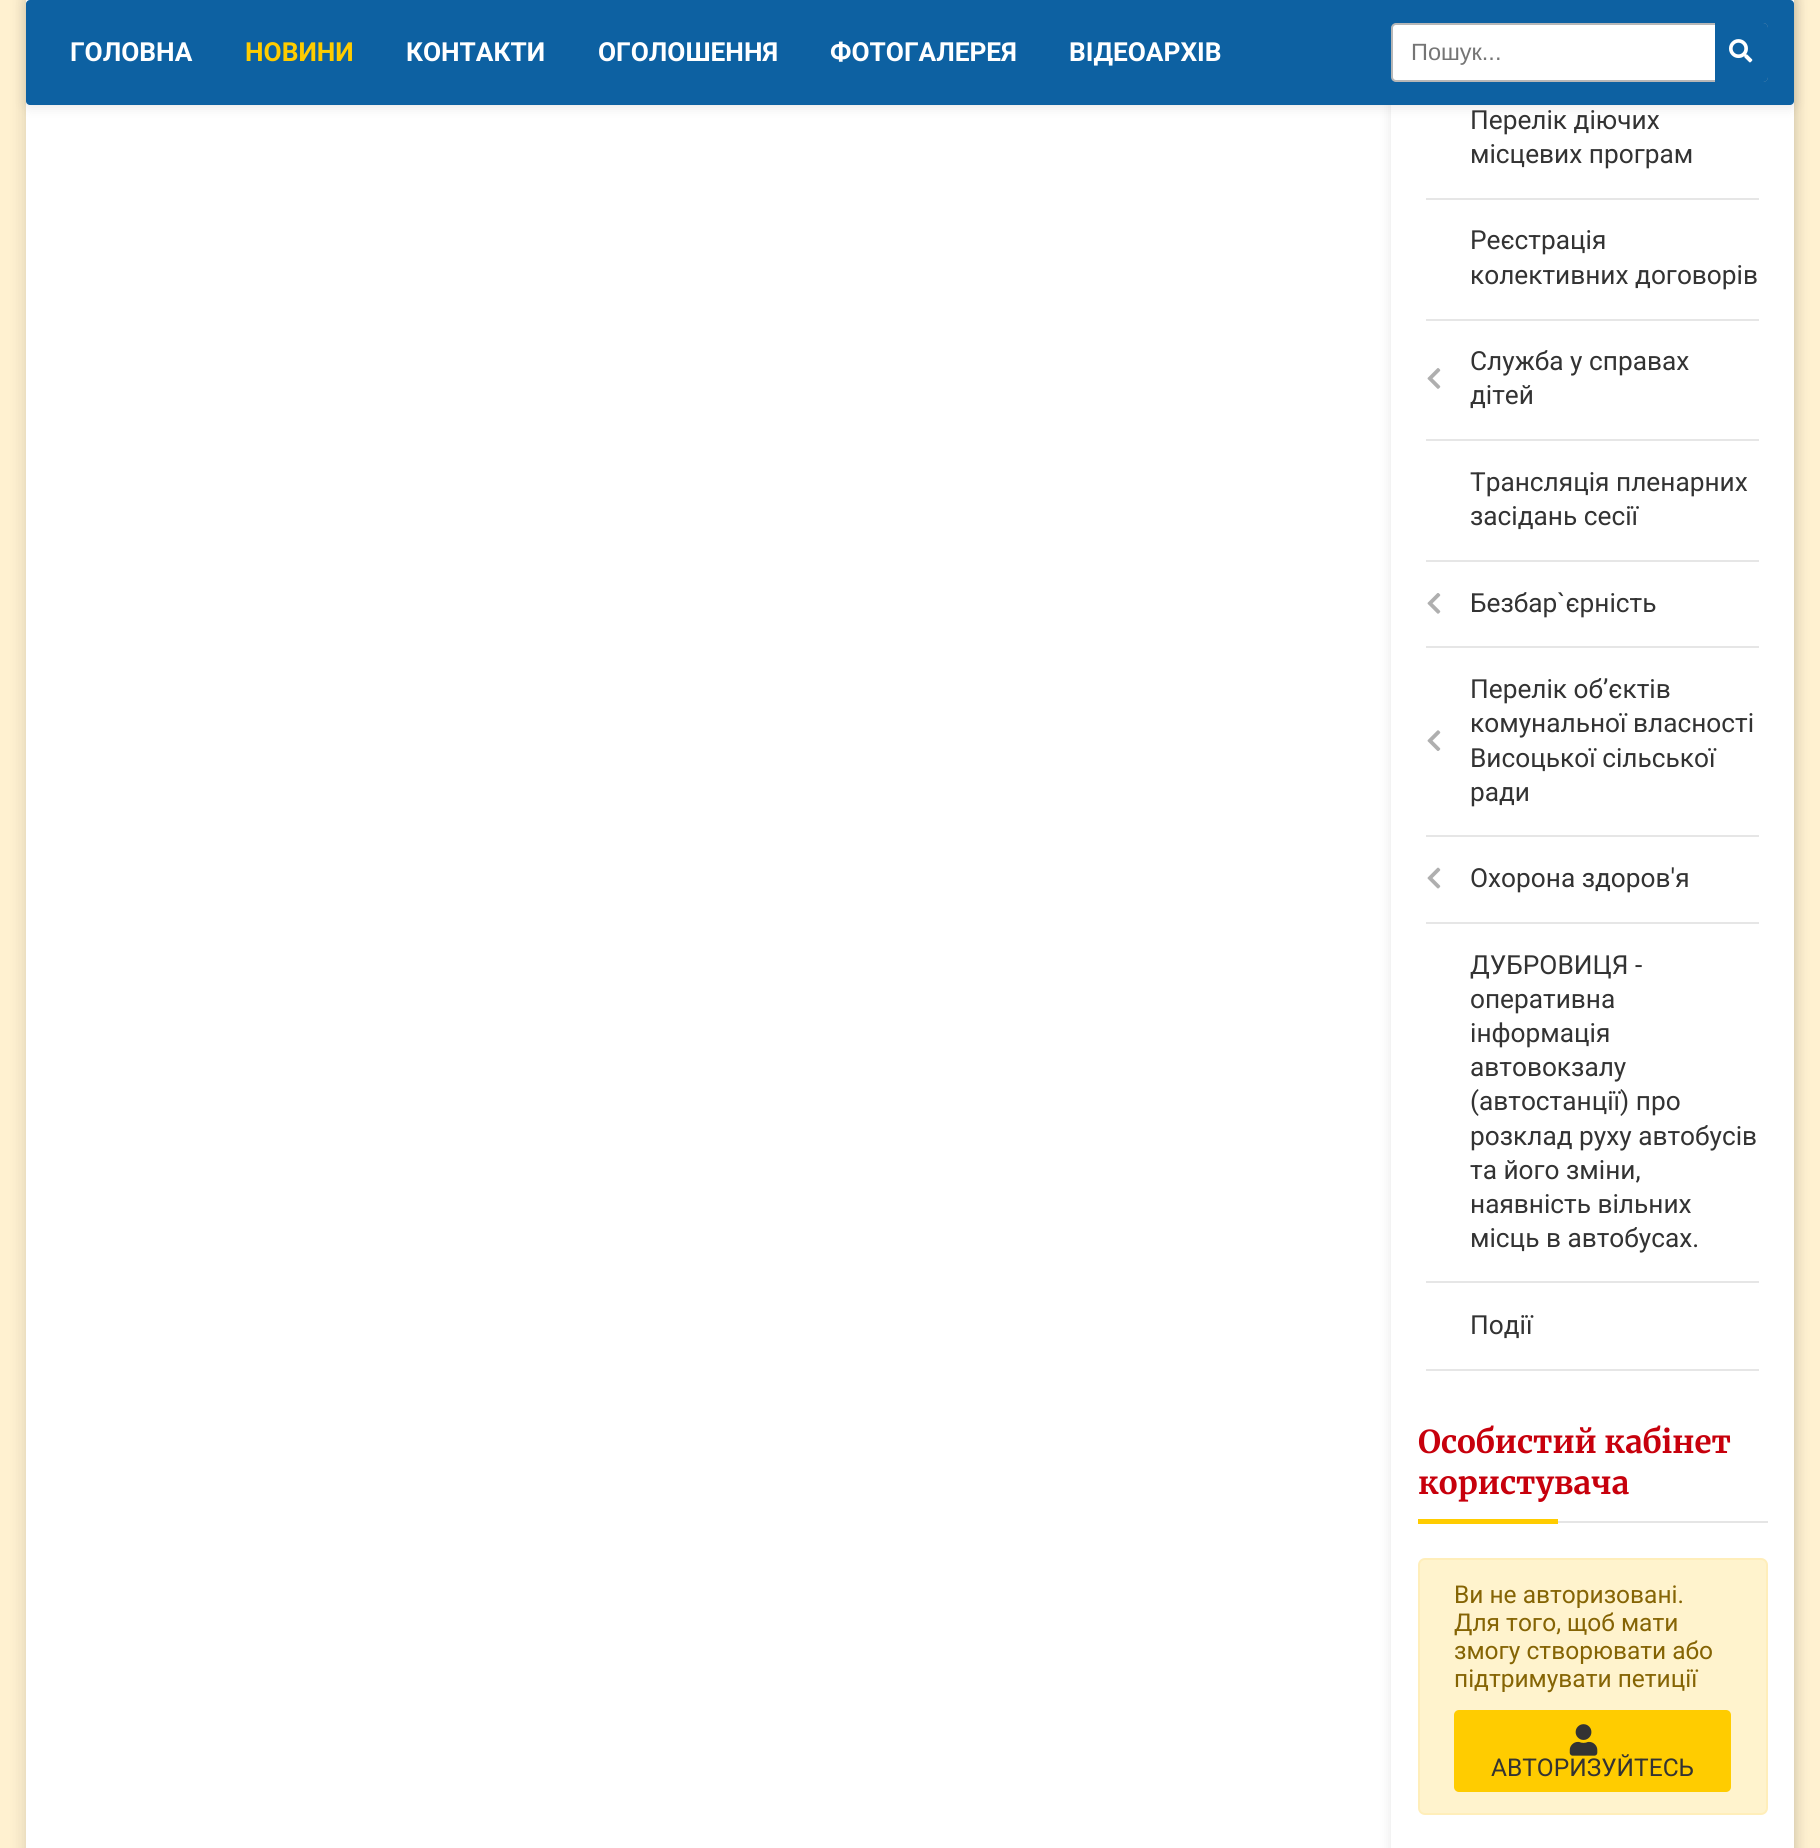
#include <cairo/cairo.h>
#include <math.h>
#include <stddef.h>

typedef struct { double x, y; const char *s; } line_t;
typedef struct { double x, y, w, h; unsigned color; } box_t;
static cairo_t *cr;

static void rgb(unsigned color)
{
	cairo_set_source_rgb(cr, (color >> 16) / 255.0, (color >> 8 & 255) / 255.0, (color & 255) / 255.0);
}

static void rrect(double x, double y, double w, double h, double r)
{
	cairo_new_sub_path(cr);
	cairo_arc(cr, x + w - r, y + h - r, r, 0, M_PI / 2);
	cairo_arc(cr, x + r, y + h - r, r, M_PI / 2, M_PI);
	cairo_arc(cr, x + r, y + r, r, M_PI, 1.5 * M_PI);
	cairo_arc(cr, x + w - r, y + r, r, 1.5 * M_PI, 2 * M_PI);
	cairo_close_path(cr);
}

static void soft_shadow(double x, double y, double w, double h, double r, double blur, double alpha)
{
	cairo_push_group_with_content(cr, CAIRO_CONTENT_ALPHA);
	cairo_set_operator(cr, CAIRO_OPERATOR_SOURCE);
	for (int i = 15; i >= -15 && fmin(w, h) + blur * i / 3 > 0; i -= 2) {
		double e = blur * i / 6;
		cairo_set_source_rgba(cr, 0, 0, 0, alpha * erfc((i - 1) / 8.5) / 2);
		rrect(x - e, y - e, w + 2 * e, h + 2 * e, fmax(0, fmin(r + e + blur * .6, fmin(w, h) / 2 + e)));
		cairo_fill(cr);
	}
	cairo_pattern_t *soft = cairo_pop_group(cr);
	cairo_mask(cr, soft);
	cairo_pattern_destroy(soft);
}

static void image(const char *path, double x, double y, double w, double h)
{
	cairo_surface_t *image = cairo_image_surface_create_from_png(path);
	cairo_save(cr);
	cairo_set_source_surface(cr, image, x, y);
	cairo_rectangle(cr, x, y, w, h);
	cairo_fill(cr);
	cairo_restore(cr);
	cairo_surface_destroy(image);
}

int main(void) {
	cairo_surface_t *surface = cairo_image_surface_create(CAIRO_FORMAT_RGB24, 1820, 1848);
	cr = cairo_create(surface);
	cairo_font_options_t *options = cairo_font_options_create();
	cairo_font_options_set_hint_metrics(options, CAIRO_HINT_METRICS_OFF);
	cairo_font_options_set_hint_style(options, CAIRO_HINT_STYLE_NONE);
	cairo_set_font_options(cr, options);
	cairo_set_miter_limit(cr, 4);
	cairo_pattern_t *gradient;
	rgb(0xffffff);
	cairo_paint(cr);
	gradient = cairo_pattern_create_linear(910, -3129, 910, 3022);
	cairo_pattern_add_color_stop_rgba(gradient, 0.11, 1, 1, 1, 1);
	cairo_pattern_add_color_stop_rgba(gradient, 0.23, 1, 0.945, 0.816, 1);
	cairo_set_source(cr, gradient);
	cairo_pattern_destroy(gradient);
	cairo_rectangle(cr, 0, 0, 1820, 1848);
	cairo_fill(cr);
	rgb(0x000000);
	soft_shadow(26, -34, 1768, 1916, 7, 9, 0.15);
	rgb(0xffffff);
	cairo_rectangle(cr, 26, 0, 1768, 1848);
	cairo_fill(cr);
	rgb(0x000000);
	soft_shadow(26, 2, 1768, 105, 4, 6, 0.1);
	cairo_save(cr);
	cairo_set_fill_rule(cr, CAIRO_FILL_RULE_EVEN_ODD);
	cairo_new_path(cr);
	cairo_move_to(cr, 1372, 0);
	cairo_line_to(cr, 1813, 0);
	cairo_line_to(cr, 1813, 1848);
	cairo_line_to(cr, 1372, 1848);
	cairo_close_path(cr);
	cairo_move_to(cr, 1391, -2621);
	cairo_line_to(cr, 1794, -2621);
	cairo_line_to(cr, 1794, 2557);
	cairo_line_to(cr, 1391, 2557);
	cairo_close_path(cr);
	cairo_clip(cr);
	soft_shadow(1391, -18, 403, 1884, 0, 6, 0.1);
	cairo_restore(cr);
	rgb(0x0d61a2);
	rrect(26, 0, 1768, 105, 4);
	cairo_fill(cr);
	rgb(0xe6e6e6);
	cairo_rectangle(cr, 1426, 198, 333, 2);
	cairo_fill(cr);
	cairo_rectangle(cr, 1426, 319, 333, 2);
	cairo_fill(cr);
	image("img/1.png", 1427, 368, 14, 21);
	cairo_rectangle(cr, 1426, 439, 333, 2);
	cairo_fill(cr);
	cairo_rectangle(cr, 1426, 560, 333, 2);
	cairo_fill(cr);
	image("img/2.png", 1427, 593, 14, 21);
	cairo_rectangle(cr, 1426, 646, 333, 2);
	cairo_fill(cr);
	image("img/3.png", 1427, 730, 14, 21);
	cairo_rectangle(cr, 1426, 835, 333, 2);
	cairo_fill(cr);
	image("img/4.png", 1427, 867, 14, 22);
	{
		static const box_t items[] = {
			{1426, 922, 333, 2, 0xe6e6e6},
			{1426, 1281, 333, 2, 0xe6e6e6},
			{1426, 1369, 333, 2, 0xe6e6e6},
			{1558, 1521, 210, 2, 0xe5e5e5},
			{1418, 1519, 140, 5, 0xffcc00},
		};
		for (size_t i = 0; i < sizeof items / sizeof *items; i++) {
			rgb(items[i].color);
			cairo_rectangle(cr, items[i].x, items[i].y, items[i].w, items[i].h);
			cairo_fill(cr);
		}
	}
	rgb(0xfff3cd);
	rrect(1419, 1559, 348, 255, 6);
	cairo_fill_preserve(cr);
	rgb(0xffeeba);
	cairo_stroke(cr);
	rgb(0xffcc00);
	rrect(1454, 1710, 277, 82, 5);
	cairo_fill(cr);
	rgb(0xffffff);
	rrect(1392, 24, 375, 57, 4);
	cairo_fill_preserve(cr);
	rgb(0xb7b7b7);
	cairo_stroke(cr);
	rgb(0x0d61a2);
	cairo_new_path(cr);
	cairo_move_to(cr, 1715, 23);
	cairo_line_to(cr, 1763, 23);
	cairo_curve_to(cr, 1766, 23, 1768, 25, 1768, 28);
	cairo_line_to(cr, 1768, 77);
	cairo_curve_to(cr, 1768, 80, 1766, 82, 1763, 82);
	cairo_line_to(cr, 1715, 82);
	cairo_close_path(cr);
	cairo_fill(cr);
	image("img/6.png", 1729, 39, 24, 24);
	cairo_select_font_face(cr, "Roboto", CAIRO_FONT_SLANT_NORMAL, CAIRO_FONT_WEIGHT_BOLD);
	cairo_set_font_size(cr, 26.25);
	rgb(0xffffff);
	cairo_move_to(cr, 70, 61);
	cairo_show_text(cr, "ГОЛОВНА");
	rgb(0xffcc00);
	cairo_move_to(cr, 245, 61);
	cairo_show_text(cr, "НОВИНИ");
	rgb(0xffffff);
	{
		static const line_t items[] = {
			{406, 61, "КОНТАКТИ"},
			{598, 61, "ОГОЛОШЕННЯ"},
			{830, 61, "ФОТОГАЛЕРЕЯ"},
			{1069, 61, "ВІДЕОАРХІВ"},
		};
		for (size_t i = 0; i < sizeof items / sizeof *items; i++) {
			cairo_move_to(cr, items[i].x, items[i].y);
			cairo_show_text(cr, items[i].s);
		}
	}
	cairo_select_font_face(cr, "Roboto", CAIRO_FONT_SLANT_NORMAL, CAIRO_FONT_WEIGHT_NORMAL);
	rgb(0x333333);
	{
		static const line_t items[] = {
			{1470, 129, "Перелік діючих"},
			{1470, 163, "місцевих програм"},
			{1470, 249, "Реєстрація"},
			{1470, 284, "колективних договорів"},
			{1470, 370, "Служба у справах"},
			{1470, 404, "дітей"},
			{1470, 491, "Трансляція пленарних"},
			{1470, 525, "засідань сесії"},
			{1470, 612, "Безбар`єрність"},
			{1470, 698, "Перелік об’єктів"},
			{1470, 732, "комунальної власності"},
			{1470, 767, "Висоцької сільської"},
			{1470, 801, "ради"},
			{1470, 887, "Охорона здоров'я"},
			{1470, 974, "ДУБРОВИЦЯ -"},
			{1470, 1008, "оперативна"},
			{1470, 1042, "інформація"},
			{1470, 1076, "автовокзалу"},
			{1470, 1110, "(автостанції) про"},
			{1470, 1145, "розклад руху автобусів"},
			{1470, 1179, "та його зміни,"},
			{1470, 1213, "наявність вільних"},
			{1470, 1247, "місць в автобусах."},
			{1470, 1334, "Події"},
		};
		for (size_t i = 0; i < sizeof items / sizeof *items; i++) {
			cairo_move_to(cr, items[i].x, items[i].y);
			cairo_show_text(cr, items[i].s);
		}
	}
	cairo_select_font_face(cr, "Merriweather Light", CAIRO_FONT_SLANT_NORMAL, CAIRO_FONT_WEIGHT_NORMAL);
	cairo_set_font_size(cr, 31.5);
	rgb(0xc7000c);
	cairo_move_to(cr, 1418, 1453);
	cairo_show_text(cr, "Особистий кабінет");
	cairo_move_to(cr, 1418, 1494);
	cairo_show_text(cr, "користувача");
	cairo_select_font_face(cr, "Roboto", CAIRO_FONT_SLANT_NORMAL, CAIRO_FONT_WEIGHT_NORMAL);
	cairo_set_font_size(cr, 24.5);
	rgb(0x856404);
	{
		static const line_t items[] = {
			{1454, 1603, "Ви не авторизовані."},
			{1454, 1631, "Для того, щоб мати"},
			{1454, 1659, "змогу створювати або"},
			{1454, 1687, "підтримувати петиції"},
		};
		for (size_t i = 0; i < sizeof items / sizeof *items; i++) {
			cairo_move_to(cr, items[i].x, items[i].y);
			cairo_show_text(cr, items[i].s);
		}
	}
	rgb(0x333333);
	cairo_move_to(cr, 1491, 1776);
	cairo_show_text(cr, "АВТОРИЗУЙТЕСЬ");
	image("img/5.png", 1569, 1724, 29, 32);
	cairo_select_font_face(cr, "Liberation Sans", CAIRO_FONT_SLANT_NORMAL, CAIRO_FONT_WEIGHT_NORMAL);
	cairo_set_font_size(cr, 23.5);
	rgb(0x757575);
	cairo_move_to(cr, 1411, 60);
	cairo_show_text(cr, "Пошук...");
	cairo_surface_write_to_png(surface, "page.png");
	cairo_font_options_destroy(options);
	cairo_destroy(cr);
	cairo_surface_destroy(surface);
	return 0;
}
